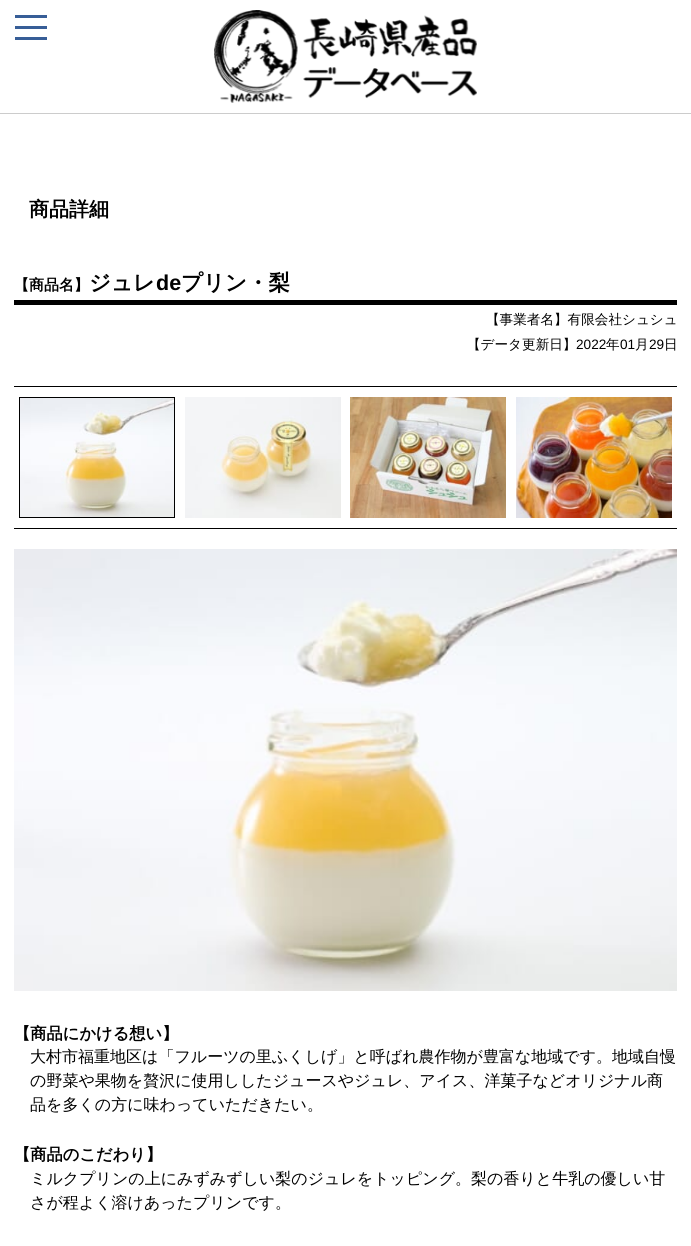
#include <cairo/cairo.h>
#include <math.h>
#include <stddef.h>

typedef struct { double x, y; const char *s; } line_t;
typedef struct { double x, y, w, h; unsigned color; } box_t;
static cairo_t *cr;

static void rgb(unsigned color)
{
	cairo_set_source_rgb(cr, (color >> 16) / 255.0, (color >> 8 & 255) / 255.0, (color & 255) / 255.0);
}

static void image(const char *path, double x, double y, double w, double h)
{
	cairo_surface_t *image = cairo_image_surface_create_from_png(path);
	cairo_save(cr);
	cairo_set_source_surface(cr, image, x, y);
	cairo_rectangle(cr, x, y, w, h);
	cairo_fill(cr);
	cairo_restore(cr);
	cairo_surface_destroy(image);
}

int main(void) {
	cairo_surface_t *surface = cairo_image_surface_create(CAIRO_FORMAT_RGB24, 691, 1246);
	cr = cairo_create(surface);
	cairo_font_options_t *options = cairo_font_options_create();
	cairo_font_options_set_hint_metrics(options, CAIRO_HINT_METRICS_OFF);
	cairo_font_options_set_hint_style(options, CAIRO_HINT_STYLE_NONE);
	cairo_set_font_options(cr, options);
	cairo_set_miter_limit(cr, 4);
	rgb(0xffffff);
	cairo_paint(cr);
	{
		static const box_t items[] = {
			{15, 15, 32, 3, 0x375e97},
			{15, 26, 32, 3, 0x375e97},
			{15, 37, 32, 3, 0x375e97},
			{0, 113, 691, 1, 0xcccccc},
		};
		for (size_t i = 0; i < sizeof items / sizeof *items; i++) {
			rgb(items[i].color);
			cairo_rectangle(cr, items[i].x, items[i].y, items[i].w, items[i].h);
			cairo_fill(cr);
		}
	}
	image("img/1.png", 214, 10, 263, 93);
	{
		static const box_t items[] = {
			{14, 300, 663, 5, 0x000000},
			{14, 386, 663, 1, 0x000000},
			{14, 528, 663, 1, 0x000000},
		};
		for (size_t i = 0; i < sizeof items / sizeof *items; i++) {
			rgb(items[i].color);
			cairo_rectangle(cr, items[i].x, items[i].y, items[i].w, items[i].h);
			cairo_fill(cr);
		}
	}
	cairo_rectangle(cr, 19.5, 397.5, 155, 120);
	cairo_set_line_width(cr, 1);
	cairo_stroke(cr);
	image("img/2.png", 20, 398, 154, 119);
	image("img/3.png", 185, 397, 156, 121);
	image("img/4.png", 350, 397, 156, 121);
	image("img/5.png", 516, 397, 156, 121);
	image("img/6.png", 14, 549, 663, 442);
	cairo_select_font_face(cr, "WenQuanYi Zen Hei", CAIRO_FONT_SLANT_NORMAL, CAIRO_FONT_WEIGHT_BOLD);
	cairo_set_font_size(cr, 20);
	cairo_move_to(cr, 29, 216);
	cairo_show_text(cr, "商品詳細");
	cairo_set_font_size(cr, 15);
	cairo_move_to(cr, 14, 290);
	cairo_show_text(cr, "【商品名】");
	cairo_set_font_size(cr, 21.5);
	cairo_move_to(cr, 89, 290);
	cairo_show_text(cr, "ジュレ");
	cairo_select_font_face(cr, "Liberation Sans", CAIRO_FONT_SLANT_NORMAL, CAIRO_FONT_WEIGHT_BOLD);
	cairo_move_to(cr, 156, 290);
	cairo_show_text(cr, "de");
	cairo_select_font_face(cr, "WenQuanYi Zen Hei", CAIRO_FONT_SLANT_NORMAL, CAIRO_FONT_WEIGHT_BOLD);
	cairo_move_to(cr, 181, 290);
	cairo_show_text(cr, "プリン・梨");
	cairo_select_font_face(cr, "WenQuanYi Zen Hei Medium", CAIRO_FONT_SLANT_NORMAL, CAIRO_FONT_WEIGHT_NORMAL);
	cairo_set_font_size(cr, 13.6);
	cairo_move_to(cr, 486, 324);
	cairo_show_text(cr, "【事業者名】有限会社シュシュ");
	cairo_move_to(cr, 467, 349);
	cairo_show_text(cr, "【データ更新日】");
	cairo_select_font_face(cr, "Liberation Sans", CAIRO_FONT_SLANT_NORMAL, CAIRO_FONT_WEIGHT_NORMAL);
	cairo_move_to(cr, 576, 349);
	cairo_show_text(cr, "2022");
	cairo_select_font_face(cr, "WenQuanYi Zen Hei Medium", CAIRO_FONT_SLANT_NORMAL, CAIRO_FONT_WEIGHT_NORMAL);
	cairo_move_to(cr, 606, 349);
	cairo_show_text(cr, "年");
	cairo_select_font_face(cr, "Liberation Sans", CAIRO_FONT_SLANT_NORMAL, CAIRO_FONT_WEIGHT_NORMAL);
	cairo_move_to(cr, 620, 349);
	cairo_show_text(cr, "01");
	cairo_select_font_face(cr, "WenQuanYi Zen Hei Medium", CAIRO_FONT_SLANT_NORMAL, CAIRO_FONT_WEIGHT_NORMAL);
	cairo_move_to(cr, 635, 349);
	cairo_show_text(cr, "月");
	cairo_select_font_face(cr, "Liberation Sans", CAIRO_FONT_SLANT_NORMAL, CAIRO_FONT_WEIGHT_NORMAL);
	cairo_move_to(cr, 649, 349);
	cairo_show_text(cr, "29");
	cairo_select_font_face(cr, "WenQuanYi Zen Hei Medium", CAIRO_FONT_SLANT_NORMAL, CAIRO_FONT_WEIGHT_NORMAL);
	cairo_move_to(cr, 664, 349);
	cairo_show_text(cr, "日");
	cairo_select_font_face(cr, "WenQuanYi Zen Hei", CAIRO_FONT_SLANT_NORMAL, CAIRO_FONT_WEIGHT_BOLD);
	cairo_set_font_size(cr, 16.25);
	cairo_move_to(cr, 14, 1039);
	cairo_show_text(cr, "【商品にかける想い】");
	cairo_select_font_face(cr, "WenQuanYi Zen Hei Medium", CAIRO_FONT_SLANT_NORMAL, CAIRO_FONT_WEIGHT_NORMAL);
	cairo_set_font_size(cr, 16);
	{
		static const line_t items[] = {
			{30, 1062, "大村市福重地区は「フルーツの里ふくしげ」と呼ばれ農作物が豊富な地域です。地域自慢"},
			{30, 1086, "の野菜や果物を贅沢に使用ししたジュースやジュレ、アイス、洋菓子などオリジナル商"},
			{30, 1110, "品を多くの方に味わっていただきたい。"},
		};
		for (size_t i = 0; i < sizeof items / sizeof *items; i++) {
			cairo_move_to(cr, items[i].x, items[i].y);
			cairo_show_text(cr, items[i].s);
		}
	}
	cairo_select_font_face(cr, "WenQuanYi Zen Hei", CAIRO_FONT_SLANT_NORMAL, CAIRO_FONT_WEIGHT_BOLD);
	cairo_set_font_size(cr, 16.25);
	cairo_move_to(cr, 14, 1160);
	cairo_show_text(cr, "【商品のこだわり】");
	cairo_select_font_face(cr, "WenQuanYi Zen Hei Medium", CAIRO_FONT_SLANT_NORMAL, CAIRO_FONT_WEIGHT_NORMAL);
	cairo_set_font_size(cr, 16);
	cairo_move_to(cr, 30, 1184);
	cairo_show_text(cr, "ミルクプリンの上にみずみずしい梨のジュレをトッピング。梨の香りと牛乳の優しい甘");
	cairo_move_to(cr, 30, 1208);
	cairo_show_text(cr, "さが程よく溶けあったプリンです。");
	cairo_surface_write_to_png(surface, "page.png");
	cairo_font_options_destroy(options);
	cairo_destroy(cr);
	cairo_surface_destroy(surface);
	return 0;
}
